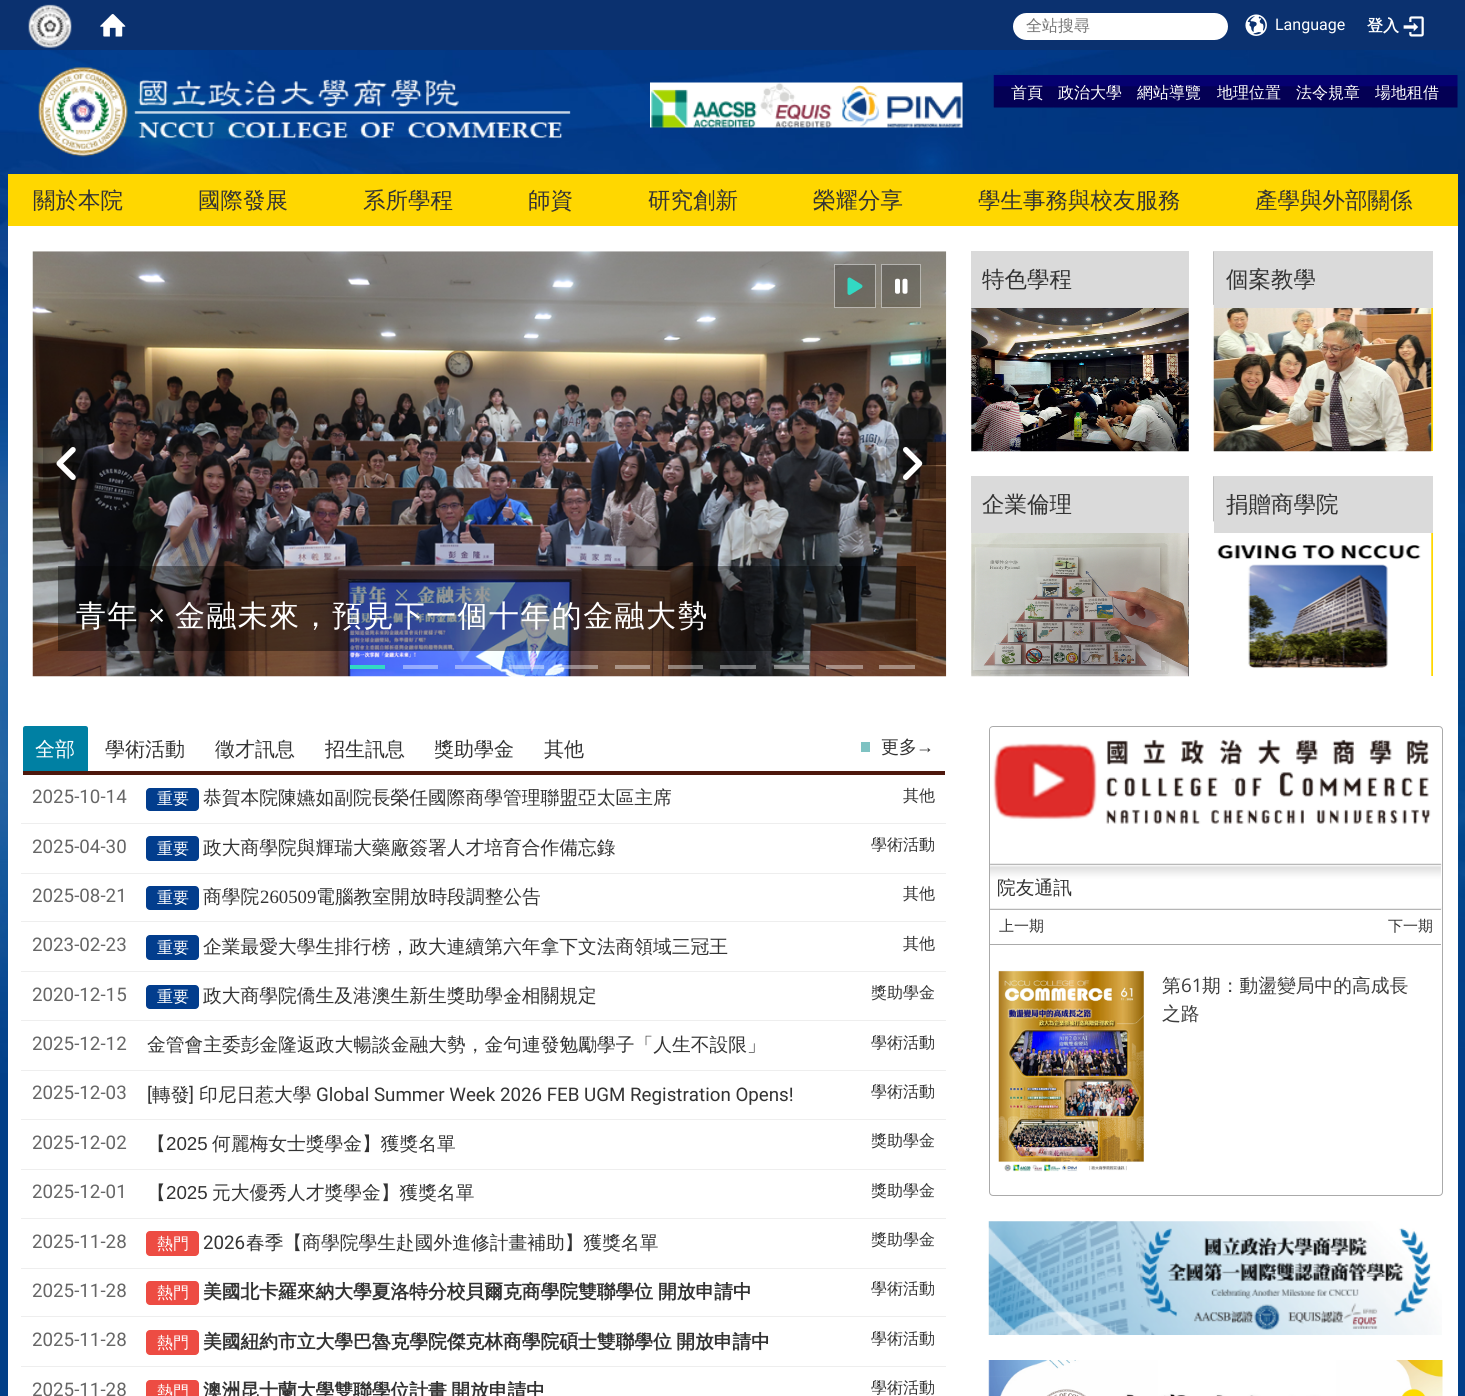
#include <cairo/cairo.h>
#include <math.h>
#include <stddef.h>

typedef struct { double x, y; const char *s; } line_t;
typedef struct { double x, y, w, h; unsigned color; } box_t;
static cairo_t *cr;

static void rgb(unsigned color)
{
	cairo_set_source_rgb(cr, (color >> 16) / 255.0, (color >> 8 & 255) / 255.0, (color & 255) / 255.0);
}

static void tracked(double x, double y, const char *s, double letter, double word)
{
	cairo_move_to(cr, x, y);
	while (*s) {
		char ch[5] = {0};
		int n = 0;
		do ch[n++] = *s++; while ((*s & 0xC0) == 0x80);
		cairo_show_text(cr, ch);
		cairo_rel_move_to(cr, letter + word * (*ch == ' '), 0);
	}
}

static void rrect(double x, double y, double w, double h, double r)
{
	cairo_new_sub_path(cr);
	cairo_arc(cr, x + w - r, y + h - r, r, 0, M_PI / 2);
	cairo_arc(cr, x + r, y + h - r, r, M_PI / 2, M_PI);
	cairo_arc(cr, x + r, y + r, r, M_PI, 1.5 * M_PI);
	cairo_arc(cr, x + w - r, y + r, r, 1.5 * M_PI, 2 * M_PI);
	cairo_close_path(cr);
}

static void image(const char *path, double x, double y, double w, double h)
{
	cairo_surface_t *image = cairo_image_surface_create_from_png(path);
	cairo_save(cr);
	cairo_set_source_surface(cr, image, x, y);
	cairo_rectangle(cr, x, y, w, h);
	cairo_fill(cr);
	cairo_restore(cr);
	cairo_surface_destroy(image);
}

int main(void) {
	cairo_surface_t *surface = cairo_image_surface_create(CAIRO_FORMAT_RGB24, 1465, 1396);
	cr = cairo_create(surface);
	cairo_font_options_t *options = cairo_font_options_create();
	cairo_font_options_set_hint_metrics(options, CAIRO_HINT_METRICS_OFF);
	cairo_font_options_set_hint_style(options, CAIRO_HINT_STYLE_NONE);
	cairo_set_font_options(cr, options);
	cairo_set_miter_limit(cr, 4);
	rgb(0x023f88);
	cairo_paint(cr);
	image("img/1.png", 0, 50, 1465, 1023);
	rgb(0x0b316f);
	cairo_rectangle(cr, 0, 0, 1465, 50);
	cairo_fill(cr);
	image("img/2.png", 28, 4, 44, 44);
	image("img/3.png", 100, 14, 26, 23);
	rgb(0xffffff);
	rrect(1013, 13, 215, 27, 13.5);
	cairo_fill(cr);
	image("img/4.png", 1245, 14, 22, 22);
	image("img/5.png", 1403, 16, 21, 21);
	image("img/6.png", 38, 67, 533, 90);
	image("img/7.png", 650, 82, 313, 46);
	image("img/8.png", 993, 75, 465, 33);
	rgb(0xffd700);
	cairo_rectangle(cr, 8, 174, 1450, 52);
	cairo_fill(cr);
	rgb(0xffffff);
	cairo_rectangle(cr, 8, 226, 1450, 1170);
	cairo_fill(cr);
	image("img/9.png", 971, 308, 218, 144);
	rgb(0xdadada);
	cairo_rectangle(cr, 971, 251, 218, 57);
	cairo_fill(cr);
	rgb(0xffd700);
	cairo_rectangle(cr, 1431, 308, 2, 143);
	cairo_fill(cr);
	image("img/10.png", 1213, 251, 219, 201);
	rgb(0xdadada);
	cairo_rectangle(cr, 1214, 251, 219, 57);
	cairo_fill(cr);
	image("img/11.png", 32, 251, 915, 426);
	cairo_set_source_rgba(cr, 0, 0, 0, 0.2);
	cairo_rectangle(cr, 834, 264, 42, 44);
	cairo_fill(cr);
	cairo_rectangle(cr, 834.5, 264.5, 41, 43);
	cairo_set_source_rgba(cr, 1, 1, 1, 0.5);
	cairo_set_line_width(cr, 1);
	cairo_stroke(cr);
	image("img/12.png", 847, 277, 16, 18);
	cairo_set_source_rgba(cr, 0, 0, 0, 0.2);
	cairo_rectangle(cr, 881, 264, 40, 44);
	cairo_fill(cr);
	cairo_rectangle(cr, 881.5, 264.5, 39, 43);
	cairo_set_source_rgba(cr, 1, 1, 1, 0.5);
	cairo_stroke(cr);
	image("img/13.png", 895, 278, 13, 16);
	cairo_set_source_rgba(cr, 0, 0, 0, 0.2);
	cairo_rectangle(cr, 43, 439, 50, 50);
	cairo_fill(cr);
	image("img/14.png", 56, 447, 20, 33);
	cairo_rectangle(cr, 886, 439, 50, 50);
	cairo_fill(cr);
	image("img/15.png", 903, 447, 20, 33);
	cairo_set_source_rgba(cr, 0, 0, 0, 0.4);
	cairo_rectangle(cr, 58, 566, 858, 85);
	cairo_fill(cr);
	rgb(0x32d9c3);
	cairo_rectangle(cr, 350, 665, 35, 4);
	cairo_fill(cr);
	cairo_set_source_rgba(cr, 1, 1, 1, 0.4);
	cairo_rectangle(cr, 403, 665, 35, 4);
	cairo_fill(cr);
	cairo_rectangle(cr, 455, 665, 36, 4);
	cairo_fill(cr);
	cairo_rectangle(cr, 509, 665, 35, 4);
	cairo_fill(cr);
	cairo_rectangle(cr, 561, 665, 37, 4);
	cairo_fill(cr);
	cairo_rectangle(cr, 615, 665, 35, 4);
	cairo_fill(cr);
	cairo_rectangle(cr, 668, 665, 35, 4);
	cairo_fill(cr);
	cairo_rectangle(cr, 720, 665, 36, 4);
	cairo_fill(cr);
	cairo_rectangle(cr, 774, 665, 35, 4);
	cairo_fill(cr);
	cairo_rectangle(cr, 826, 665, 37, 4);
	cairo_fill(cr);
	cairo_rectangle(cr, 879, 665, 36, 4);
	cairo_fill(cr);
	image("img/16.png", 971, 533, 218, 144);
	rgb(0xdadada);
	cairo_rectangle(cr, 971, 476, 218, 57);
	cairo_fill(cr);
	rgb(0xffd700);
	cairo_rectangle(cr, 1431, 533, 2, 143);
	cairo_fill(cr);
	image("img/17.png", 1213, 476, 219, 200);
	rgb(0xdadada);
	cairo_rectangle(cr, 1214, 476, 219, 57);
	cairo_fill(cr);
	rgb(0x7ec2c2);
	cairo_rectangle(cr, 861, 742, 9, 10);
	cairo_fill(cr);
	rgb(0x023d8d);
	rrect(146, 788, 53, 23, 4);
	cairo_fill(cr);
	rgb(0xeeeeee);
	cairo_rectangle(cr, 21, 823, 925, 1);
	cairo_fill(cr);
	rgb(0x023d8d);
	rrect(146, 836, 53, 25, 4);
	cairo_fill(cr);
	rgb(0xeeeeee);
	cairo_rectangle(cr, 21, 873, 925, 1);
	cairo_fill(cr);
	rgb(0x023d8d);
	rrect(146, 886, 53, 24, 4);
	cairo_fill(cr);
	rgb(0xeeeeee);
	cairo_rectangle(cr, 21, 921, 925, 1);
	cairo_fill(cr);
	rgb(0x023d8d);
	rrect(146, 935, 53, 25, 4);
	cairo_fill(cr);
	rgb(0xeeeeee);
	cairo_rectangle(cr, 21, 971, 925, 1);
	cairo_fill(cr);
	rgb(0x023d8d);
	rrect(146, 985, 53, 24, 4);
	cairo_fill(cr);
	{
		static const box_t items[] = {
			{21, 1020, 925, 1, 0xeeeeee},
			{21, 1070, 925, 1, 0xeeeeee},
			{21, 1119, 925, 1, 0xeeeeee},
			{21, 1169, 925, 1, 0xeeeeee},
			{21, 1218, 925, 1, 0xeeeeee},
		};
		for (size_t i = 0; i < sizeof items / sizeof *items; i++) {
			rgb(items[i].color);
			cairo_rectangle(cr, items[i].x, items[i].y, items[i].w, items[i].h);
			cairo_fill(cr);
		}
	}
	rgb(0xed4c43);
	rrect(146, 1231, 53, 25, 4);
	cairo_fill(cr);
	rgb(0xeeeeee);
	cairo_rectangle(cr, 21, 1268, 925, 1);
	cairo_fill(cr);
	rgb(0xed4c43);
	rrect(146, 1281, 53, 24, 4);
	cairo_fill(cr);
	rgb(0xeeeeee);
	cairo_rectangle(cr, 21, 1316, 925, 1);
	cairo_fill(cr);
	rgb(0xed4c43);
	rrect(146, 1330, 53, 25, 4);
	cairo_fill(cr);
	rgb(0xeeeeee);
	cairo_rectangle(cr, 21, 1366, 925, 1);
	cairo_fill(cr);
	rgb(0xed4c43);
	rrect(146, 1380, 53, 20, 4);
	cairo_fill(cr);
	rgb(0x4d180d);
	cairo_rectangle(cr, 23, 771, 922, 4);
	cairo_fill(cr);
	rgb(0x0080a3);
	cairo_new_path(cr);
	cairo_move_to(cr, 25.5, 726);
	cairo_line_to(cr, 85.5, 726);
	cairo_curve_to(cr, 87, 726, 88, 727, 88, 728.5);
	cairo_line_to(cr, 88, 771);
	cairo_line_to(cr, 23, 771);
	cairo_line_to(cr, 23, 728.5);
	cairo_curve_to(cr, 23, 727, 24, 726, 25.5, 726);
	cairo_close_path(cr);
	cairo_fill(cr);
	rrect(989.5, 726.5, 453, 469, 3.5);
	rgb(0xaaaaaa);
	cairo_stroke(cr);
	image("img/18.png", 990, 727, 441, 97);
	image("img/19.png", 990, 863, 452, 47);
	cairo_rectangle(cr, 990, 944, 451, 1);
	cairo_fill(cr);
	image("img/20.png", 998, 970, 146, 202);
	image("img/21.png", 988, 1221, 454, 114);
	image("img/22.png", 988, 1360, 455, 36);
	cairo_select_font_face(cr, "WenQuanYi Zen Hei Medium", CAIRO_FONT_SLANT_NORMAL, CAIRO_FONT_WEIGHT_NORMAL);
	cairo_set_font_size(cr, 16);
	rgb(0x757575);
	cairo_move_to(cr, 1026, 31);
	cairo_show_text(cr, "全站搜尋");
	cairo_select_font_face(cr, "Roboto", CAIRO_FONT_SLANT_NORMAL, CAIRO_FONT_WEIGHT_NORMAL);
	rgb(0xffffff);
	cairo_move_to(cr, 1275, 30);
	cairo_show_text(cr, "Language");
	cairo_select_font_face(cr, "WenQuanYi Zen Hei", CAIRO_FONT_SLANT_NORMAL, CAIRO_FONT_WEIGHT_BOLD);
	cairo_move_to(cr, 1367, 31);
	cairo_show_text(cr, "登入");
	cairo_select_font_face(cr, "WenQuanYi Zen Hei Medium", CAIRO_FONT_SLANT_NORMAL, CAIRO_FONT_WEIGHT_NORMAL);
	{
		static const line_t items[] = {
			{1011, 98, "首頁"},
			{1058, 98, "政治大學"},
			{1137, 98, "網站導覽"},
			{1217, 98, "地理位置"},
			{1296, 98, "法令規章"},
			{1375, 98, "場地租借"},
		};
		for (size_t i = 0; i < sizeof items / sizeof *items; i++) {
			cairo_move_to(cr, items[i].x, items[i].y);
			cairo_show_text(cr, items[i].s);
		}
	}
	cairo_set_font_size(cr, 22.5);
	rgb(0x333333);
	{
		static const line_t items[] = {
			{33, 208, "關於本院"},
			{198, 208, "國際發展"},
			{363, 208, "系所學程"},
			{528, 208, "師資"},
			{648, 208, "研究創新"},
			{813, 208, "榮耀分享"},
			{978, 208, "學生事務與校友服務"},
			{1255, 208, "產學與外部關係"},
			{982, 287, "特色學程"},
			{1226, 287, "個案教學"},
		};
		for (size_t i = 0; i < sizeof items / sizeof *items; i++) {
			cairo_move_to(cr, items[i].x, items[i].y);
			cairo_show_text(cr, items[i].s);
		}
	}
	cairo_set_font_size(cr, 30);
	rgb(0xffffff);
	tracked(76, 626, "青年", 1.4, 0);
	cairo_select_font_face(cr, "Open Sans", CAIRO_FONT_SLANT_NORMAL, CAIRO_FONT_WEIGHT_NORMAL);
	tracked(148, 626, "×", 1.4, 0);
	cairo_select_font_face(cr, "WenQuanYi Zen Hei Medium", CAIRO_FONT_SLANT_NORMAL, CAIRO_FONT_WEIGHT_NORMAL);
	tracked(175, 626, "金融未來，預見下一個十年的金融大勢", 1.4, 0);
	cairo_set_font_size(cr, 22.5);
	rgb(0x333333);
	cairo_move_to(cr, 982, 512);
	cairo_show_text(cr, "企業倫理");
	cairo_move_to(cr, 1226, 512);
	cairo_show_text(cr, "捐贈商學院");
	cairo_set_font_size(cr, 18);
	cairo_move_to(cr, 881, 753);
	cairo_show_text(cr, "更多");
	cairo_select_font_face(cr, "Liberation Sans", CAIRO_FONT_SLANT_NORMAL, CAIRO_FONT_WEIGHT_NORMAL);
	cairo_move_to(cr, 916, 753);
	cairo_show_text(cr, "→");
	cairo_select_font_face(cr, "Roboto", CAIRO_FONT_SLANT_NORMAL, CAIRO_FONT_WEIGHT_NORMAL);
	cairo_set_font_size(cr, 18.75);
	rgb(0x666666);
	cairo_move_to(cr, 32, 803);
	cairo_show_text(cr, "2025-10-14");
	cairo_select_font_face(cr, "WenQuanYi Zen Hei Medium", CAIRO_FONT_SLANT_NORMAL, CAIRO_FONT_WEIGHT_NORMAL);
	cairo_set_font_size(cr, 16);
	rgb(0xffffff);
	cairo_move_to(cr, 157, 804);
	cairo_show_text(cr, "重要");
	cairo_set_font_size(cr, 18.75);
	rgb(0x333333);
	cairo_move_to(cr, 203, 804);
	cairo_show_text(cr, "恭賀本院陳嬿如副院長榮任國際商學管理聯盟亞太區主席");
	cairo_set_font_size(cr, 16);
	cairo_move_to(cr, 903, 801);
	cairo_show_text(cr, "其他");
	cairo_select_font_face(cr, "Roboto", CAIRO_FONT_SLANT_NORMAL, CAIRO_FONT_WEIGHT_NORMAL);
	cairo_set_font_size(cr, 18.75);
	rgb(0x666666);
	cairo_move_to(cr, 32, 853);
	cairo_show_text(cr, "2025-04-30");
	cairo_select_font_face(cr, "WenQuanYi Zen Hei Medium", CAIRO_FONT_SLANT_NORMAL, CAIRO_FONT_WEIGHT_NORMAL);
	cairo_set_font_size(cr, 16);
	rgb(0xffffff);
	cairo_move_to(cr, 157, 854);
	cairo_show_text(cr, "重要");
	cairo_set_font_size(cr, 18.75);
	rgb(0x333333);
	cairo_move_to(cr, 203, 854);
	cairo_show_text(cr, "政大商學院與輝瑞大藥廠簽署人才培育合作備忘錄");
	cairo_set_font_size(cr, 16);
	cairo_move_to(cr, 871, 850);
	cairo_show_text(cr, "學術活動");
	cairo_select_font_face(cr, "Roboto", CAIRO_FONT_SLANT_NORMAL, CAIRO_FONT_WEIGHT_NORMAL);
	cairo_set_font_size(cr, 18.75);
	rgb(0x666666);
	cairo_move_to(cr, 32, 902);
	cairo_show_text(cr, "2025-08-21");
	cairo_select_font_face(cr, "WenQuanYi Zen Hei Medium", CAIRO_FONT_SLANT_NORMAL, CAIRO_FONT_WEIGHT_NORMAL);
	cairo_set_font_size(cr, 16);
	rgb(0xffffff);
	cairo_move_to(cr, 157, 903);
	cairo_show_text(cr, "重要");
	cairo_set_font_size(cr, 18.75);
	rgb(0x333333);
	cairo_move_to(cr, 203, 903);
	cairo_show_text(cr, "商學院");
	cairo_select_font_face(cr, "Liberation Serif", CAIRO_FONT_SLANT_NORMAL, CAIRO_FONT_WEIGHT_NORMAL);
	cairo_move_to(cr, 260, 903);
	cairo_show_text(cr, "260509");
	cairo_select_font_face(cr, "WenQuanYi Zen Hei Medium", CAIRO_FONT_SLANT_NORMAL, CAIRO_FONT_WEIGHT_NORMAL);
	cairo_move_to(cr, 316, 903);
	cairo_show_text(cr, "電腦教室開放時段調整公告");
	cairo_set_font_size(cr, 16);
	cairo_move_to(cr, 903, 899);
	cairo_show_text(cr, "其他");
	cairo_select_font_face(cr, "Roboto", CAIRO_FONT_SLANT_NORMAL, CAIRO_FONT_WEIGHT_NORMAL);
	cairo_set_font_size(cr, 18.75);
	rgb(0x666666);
	cairo_move_to(cr, 32, 951);
	cairo_show_text(cr, "2023-02-23");
	cairo_select_font_face(cr, "WenQuanYi Zen Hei Medium", CAIRO_FONT_SLANT_NORMAL, CAIRO_FONT_WEIGHT_NORMAL);
	cairo_set_font_size(cr, 16);
	rgb(0xffffff);
	cairo_move_to(cr, 157, 953);
	cairo_show_text(cr, "重要");
	cairo_set_font_size(cr, 18.75);
	rgb(0x333333);
	cairo_move_to(cr, 203, 953);
	cairo_show_text(cr, "企業最愛大學生排行榜，政大連續第六年拿下文法商領域三冠王");
	cairo_set_font_size(cr, 16);
	cairo_move_to(cr, 903, 949);
	cairo_show_text(cr, "其他");
	cairo_select_font_face(cr, "Roboto", CAIRO_FONT_SLANT_NORMAL, CAIRO_FONT_WEIGHT_NORMAL);
	cairo_set_font_size(cr, 18.75);
	rgb(0x666666);
	cairo_move_to(cr, 32, 1001);
	cairo_show_text(cr, "2020-12-15");
	cairo_select_font_face(cr, "WenQuanYi Zen Hei Medium", CAIRO_FONT_SLANT_NORMAL, CAIRO_FONT_WEIGHT_NORMAL);
	cairo_set_font_size(cr, 16);
	rgb(0xffffff);
	cairo_move_to(cr, 157, 1002);
	cairo_show_text(cr, "重要");
	cairo_set_font_size(cr, 18.75);
	rgb(0x333333);
	cairo_move_to(cr, 203, 1002);
	cairo_show_text(cr, "政大商學院僑生及港澳生新生獎助學金相關規定");
	cairo_set_font_size(cr, 16);
	cairo_move_to(cr, 871, 998);
	cairo_show_text(cr, "獎助學金");
	cairo_select_font_face(cr, "Roboto", CAIRO_FONT_SLANT_NORMAL, CAIRO_FONT_WEIGHT_NORMAL);
	cairo_set_font_size(cr, 18.75);
	rgb(0x666666);
	cairo_move_to(cr, 32, 1050);
	cairo_show_text(cr, "2025-12-12");
	cairo_select_font_face(cr, "WenQuanYi Zen Hei Medium", CAIRO_FONT_SLANT_NORMAL, CAIRO_FONT_WEIGHT_NORMAL);
	rgb(0x333333);
	cairo_move_to(cr, 147, 1051);
	cairo_show_text(cr, "金管會主委彭金隆返政大暢談金融大勢，金句連發勉勵學子「人生不設限」");
	cairo_set_font_size(cr, 16);
	cairo_move_to(cr, 871, 1048);
	cairo_show_text(cr, "學術活動");
	cairo_select_font_face(cr, "Roboto", CAIRO_FONT_SLANT_NORMAL, CAIRO_FONT_WEIGHT_NORMAL);
	cairo_set_font_size(cr, 18.75);
	rgb(0x666666);
	cairo_move_to(cr, 32, 1099);
	cairo_show_text(cr, "2025-12-03");
	rgb(0x333333);
	cairo_move_to(cr, 147, 1101);
	cairo_show_text(cr, "[");
	cairo_select_font_face(cr, "WenQuanYi Zen Hei Medium", CAIRO_FONT_SLANT_NORMAL, CAIRO_FONT_WEIGHT_NORMAL);
	cairo_move_to(cr, 152, 1101);
	cairo_show_text(cr, "轉發");
	cairo_select_font_face(cr, "Roboto", CAIRO_FONT_SLANT_NORMAL, CAIRO_FONT_WEIGHT_NORMAL);
	cairo_move_to(cr, 189, 1101);
	cairo_show_text(cr, "]");
	cairo_select_font_face(cr, "WenQuanYi Zen Hei Medium", CAIRO_FONT_SLANT_NORMAL, CAIRO_FONT_WEIGHT_NORMAL);
	cairo_move_to(cr, 199, 1101);
	cairo_show_text(cr, "印尼日惹大學");
	cairo_select_font_face(cr, "Roboto", CAIRO_FONT_SLANT_NORMAL, CAIRO_FONT_WEIGHT_NORMAL);
	cairo_move_to(cr, 316, 1101);
	cairo_show_text(cr, "Global Summer Week 2026 FEB UGM Registration Opens!");
	cairo_select_font_face(cr, "WenQuanYi Zen Hei Medium", CAIRO_FONT_SLANT_NORMAL, CAIRO_FONT_WEIGHT_NORMAL);
	cairo_set_font_size(cr, 16);
	cairo_move_to(cr, 871, 1097);
	cairo_show_text(cr, "學術活動");
	cairo_select_font_face(cr, "Roboto", CAIRO_FONT_SLANT_NORMAL, CAIRO_FONT_WEIGHT_NORMAL);
	cairo_set_font_size(cr, 18.75);
	rgb(0x666666);
	cairo_move_to(cr, 32, 1149);
	cairo_show_text(cr, "2025-12-02");
	cairo_select_font_face(cr, "WenQuanYi Zen Hei Medium", CAIRO_FONT_SLANT_NORMAL, CAIRO_FONT_WEIGHT_NORMAL);
	rgb(0x333333);
	cairo_move_to(cr, 147, 1150);
	cairo_show_text(cr, "【");
	cairo_select_font_face(cr, "Liberation Sans", CAIRO_FONT_SLANT_NORMAL, CAIRO_FONT_WEIGHT_NORMAL);
	cairo_move_to(cr, 166, 1150);
	cairo_show_text(cr, "2025");
	cairo_select_font_face(cr, "WenQuanYi Zen Hei Medium", CAIRO_FONT_SLANT_NORMAL, CAIRO_FONT_WEIGHT_NORMAL);
	cairo_move_to(cr, 212, 1150);
	cairo_show_text(cr, "何麗梅女士獎學金】獲獎名單");
	cairo_set_font_size(cr, 16);
	cairo_move_to(cr, 871, 1146);
	cairo_show_text(cr, "獎助學金");
	cairo_select_font_face(cr, "Roboto", CAIRO_FONT_SLANT_NORMAL, CAIRO_FONT_WEIGHT_NORMAL);
	cairo_set_font_size(cr, 18.75);
	rgb(0x666666);
	cairo_move_to(cr, 32, 1198);
	cairo_show_text(cr, "2025-12-01");
	cairo_select_font_face(cr, "WenQuanYi Zen Hei Medium", CAIRO_FONT_SLANT_NORMAL, CAIRO_FONT_WEIGHT_NORMAL);
	rgb(0x333333);
	cairo_move_to(cr, 147, 1199);
	cairo_show_text(cr, "【");
	cairo_select_font_face(cr, "Liberation Sans", CAIRO_FONT_SLANT_NORMAL, CAIRO_FONT_WEIGHT_NORMAL);
	cairo_move_to(cr, 166, 1199);
	cairo_show_text(cr, "2025");
	cairo_select_font_face(cr, "WenQuanYi Zen Hei Medium", CAIRO_FONT_SLANT_NORMAL, CAIRO_FONT_WEIGHT_NORMAL);
	cairo_move_to(cr, 212, 1199);
	cairo_show_text(cr, "元大優秀人才獎學金】獲獎名單");
	cairo_set_font_size(cr, 16);
	cairo_move_to(cr, 871, 1196);
	cairo_show_text(cr, "獎助學金");
	cairo_select_font_face(cr, "Roboto", CAIRO_FONT_SLANT_NORMAL, CAIRO_FONT_WEIGHT_NORMAL);
	cairo_set_font_size(cr, 18.75);
	rgb(0x666666);
	cairo_move_to(cr, 32, 1248);
	cairo_show_text(cr, "2025-11-28");
	cairo_select_font_face(cr, "WenQuanYi Zen Hei Medium", CAIRO_FONT_SLANT_NORMAL, CAIRO_FONT_WEIGHT_NORMAL);
	cairo_set_font_size(cr, 16);
	rgb(0xffffff);
	cairo_move_to(cr, 157, 1249);
	cairo_show_text(cr, "熱門");
	cairo_select_font_face(cr, "Roboto", CAIRO_FONT_SLANT_NORMAL, CAIRO_FONT_WEIGHT_NORMAL);
	cairo_set_font_size(cr, 18.75);
	rgb(0x333333);
	cairo_move_to(cr, 203, 1249);
	cairo_show_text(cr, "2026");
	cairo_select_font_face(cr, "WenQuanYi Zen Hei Medium", CAIRO_FONT_SLANT_NORMAL, CAIRO_FONT_WEIGHT_NORMAL);
	cairo_move_to(cr, 246, 1249);
	cairo_show_text(cr, "春季【商學院學生赴國外進修計畫補助】獲獎名單");
	cairo_set_font_size(cr, 16);
	cairo_move_to(cr, 871, 1245);
	cairo_show_text(cr, "獎助學金");
	cairo_select_font_face(cr, "Roboto", CAIRO_FONT_SLANT_NORMAL, CAIRO_FONT_WEIGHT_NORMAL);
	cairo_set_font_size(cr, 18.75);
	rgb(0x666666);
	cairo_move_to(cr, 32, 1297);
	cairo_show_text(cr, "2025-11-28");
	cairo_select_font_face(cr, "WenQuanYi Zen Hei Medium", CAIRO_FONT_SLANT_NORMAL, CAIRO_FONT_WEIGHT_NORMAL);
	cairo_set_font_size(cr, 16);
	rgb(0xffffff);
	cairo_move_to(cr, 157, 1298);
	cairo_show_text(cr, "熱門");
	cairo_select_font_face(cr, "WenQuanYi Zen Hei", CAIRO_FONT_SLANT_NORMAL, CAIRO_FONT_WEIGHT_BOLD);
	cairo_set_font_size(cr, 18.75);
	rgb(0x333333);
	cairo_move_to(cr, 203, 1298);
	cairo_show_text(cr, "美國北卡羅來納大學夏洛特分校貝爾克商學院雙聯學位");
	cairo_move_to(cr, 658, 1298);
	cairo_show_text(cr, "開放申請中");
	cairo_select_font_face(cr, "WenQuanYi Zen Hei Medium", CAIRO_FONT_SLANT_NORMAL, CAIRO_FONT_WEIGHT_NORMAL);
	cairo_set_font_size(cr, 16);
	cairo_move_to(cr, 871, 1294);
	cairo_show_text(cr, "學術活動");
	cairo_select_font_face(cr, "Roboto", CAIRO_FONT_SLANT_NORMAL, CAIRO_FONT_WEIGHT_NORMAL);
	cairo_set_font_size(cr, 18.75);
	rgb(0x666666);
	cairo_move_to(cr, 32, 1346);
	cairo_show_text(cr, "2025-11-28");
	cairo_select_font_face(cr, "WenQuanYi Zen Hei Medium", CAIRO_FONT_SLANT_NORMAL, CAIRO_FONT_WEIGHT_NORMAL);
	cairo_set_font_size(cr, 16);
	rgb(0xffffff);
	cairo_move_to(cr, 157, 1348);
	cairo_show_text(cr, "熱門");
	cairo_select_font_face(cr, "WenQuanYi Zen Hei", CAIRO_FONT_SLANT_NORMAL, CAIRO_FONT_WEIGHT_BOLD);
	cairo_set_font_size(cr, 18.75);
	rgb(0x333333);
	tracked(203, 1348, "美國紐約市立大學巴魯克學院傑克林商學院碩士雙聯學位 開放申請中", 0, -1);
	cairo_select_font_face(cr, "WenQuanYi Zen Hei Medium", CAIRO_FONT_SLANT_NORMAL, CAIRO_FONT_WEIGHT_NORMAL);
	cairo_set_font_size(cr, 16);
	cairo_move_to(cr, 871, 1344);
	cairo_show_text(cr, "學術活動");
	cairo_select_font_face(cr, "Roboto", CAIRO_FONT_SLANT_NORMAL, CAIRO_FONT_WEIGHT_NORMAL);
	cairo_set_font_size(cr, 18.75);
	rgb(0x666666);
	cairo_move_to(cr, 32, 1396);
	cairo_show_text(cr, "2025-11-28");
	cairo_select_font_face(cr, "WenQuanYi Zen Hei Medium", CAIRO_FONT_SLANT_NORMAL, CAIRO_FONT_WEIGHT_NORMAL);
	cairo_set_font_size(cr, 16);
	rgb(0xffffff);
	cairo_move_to(cr, 157, 1397);
	cairo_show_text(cr, "熱門");
	cairo_select_font_face(cr, "WenQuanYi Zen Hei", CAIRO_FONT_SLANT_NORMAL, CAIRO_FONT_WEIGHT_BOLD);
	cairo_set_font_size(cr, 18.75);
	rgb(0x333333);
	tracked(203, 1397, "澳洲昆士蘭大學雙聯學位計畫 開放申請中", 0, -1);
	cairo_select_font_face(cr, "WenQuanYi Zen Hei Medium", CAIRO_FONT_SLANT_NORMAL, CAIRO_FONT_WEIGHT_NORMAL);
	cairo_set_font_size(cr, 16);
	cairo_move_to(cr, 871, 1393);
	cairo_show_text(cr, "學術活動");
	cairo_set_font_size(cr, 20);
	rgb(0xffffff);
	cairo_move_to(cr, 35, 756);
	cairo_show_text(cr, "全部");
	rgb(0x333333);
	{
		static const line_t items[] = {
			{105, 756, "學術活動"},
			{215, 756, "徵才訊息"},
			{325, 756, "招生訊息"},
			{434, 756, "獎助學金"},
			{544, 756, "其他"},
		};
		for (size_t i = 0; i < sizeof items / sizeof *items; i++) {
			cairo_move_to(cr, items[i].x, items[i].y);
			cairo_show_text(cr, items[i].s);
		}
	}
	cairo_set_font_size(cr, 18.75);
	cairo_move_to(cr, 997, 894);
	cairo_show_text(cr, "院友通訊");
	cairo_set_font_size(cr, 15);
	cairo_move_to(cr, 999, 931);
	cairo_show_text(cr, "上一期");
	cairo_move_to(cr, 1388, 931);
	cairo_show_text(cr, "下一期");
	cairo_set_font_size(cr, 18.75);
	rgb(0x3c3c3c);
	cairo_move_to(cr, 1162, 992);
	cairo_show_text(cr, "第");
	cairo_select_font_face(cr, "Open Sans", CAIRO_FONT_SLANT_NORMAL, CAIRO_FONT_WEIGHT_NORMAL);
	cairo_move_to(cr, 1181, 992);
	cairo_show_text(cr, "61");
	cairo_select_font_face(cr, "WenQuanYi Zen Hei Medium", CAIRO_FONT_SLANT_NORMAL, CAIRO_FONT_WEIGHT_NORMAL);
	cairo_move_to(cr, 1202, 992);
	cairo_show_text(cr, "期：動盪變局中的高成長");
	cairo_move_to(cr, 1162, 1020);
	cairo_show_text(cr, "之路");
	cairo_surface_write_to_png(surface, "page.png");
	cairo_font_options_destroy(options);
	cairo_destroy(cr);
	cairo_surface_destroy(surface);
	return 0;
}
